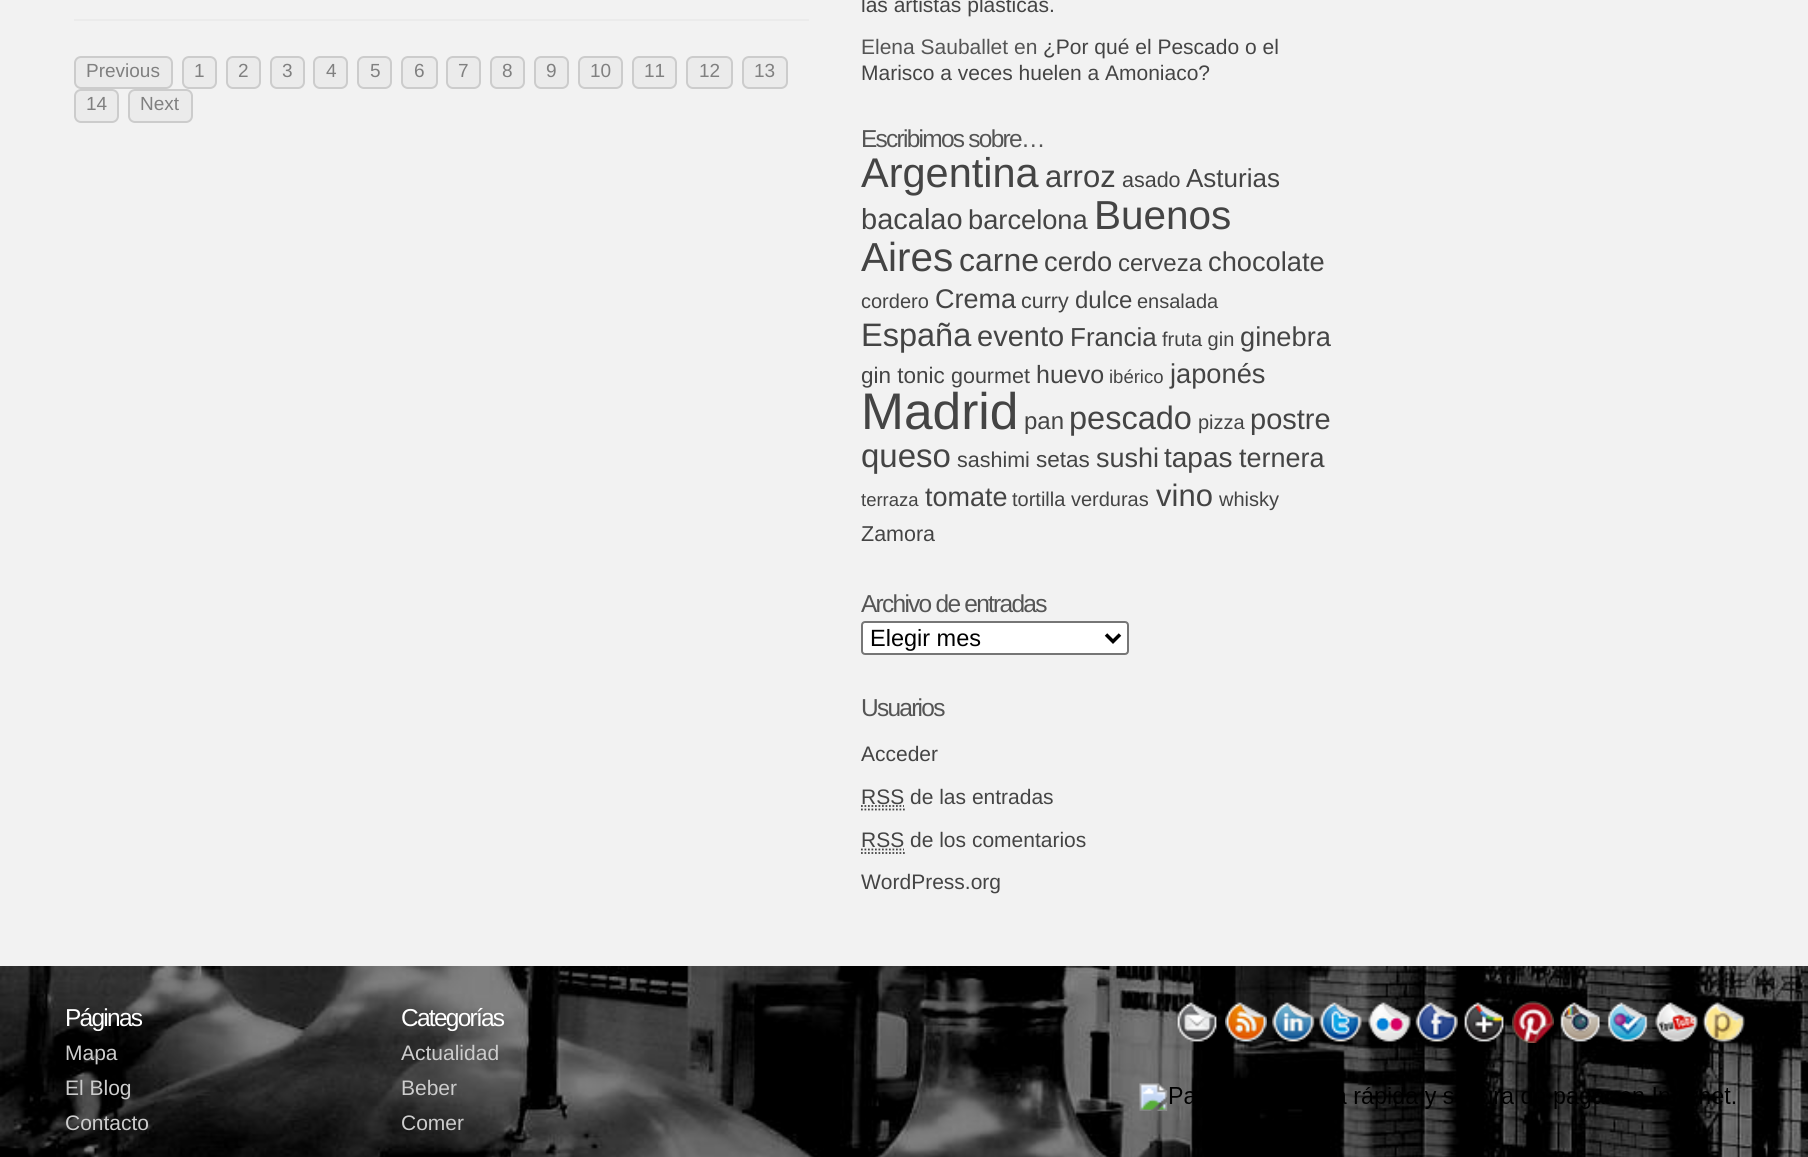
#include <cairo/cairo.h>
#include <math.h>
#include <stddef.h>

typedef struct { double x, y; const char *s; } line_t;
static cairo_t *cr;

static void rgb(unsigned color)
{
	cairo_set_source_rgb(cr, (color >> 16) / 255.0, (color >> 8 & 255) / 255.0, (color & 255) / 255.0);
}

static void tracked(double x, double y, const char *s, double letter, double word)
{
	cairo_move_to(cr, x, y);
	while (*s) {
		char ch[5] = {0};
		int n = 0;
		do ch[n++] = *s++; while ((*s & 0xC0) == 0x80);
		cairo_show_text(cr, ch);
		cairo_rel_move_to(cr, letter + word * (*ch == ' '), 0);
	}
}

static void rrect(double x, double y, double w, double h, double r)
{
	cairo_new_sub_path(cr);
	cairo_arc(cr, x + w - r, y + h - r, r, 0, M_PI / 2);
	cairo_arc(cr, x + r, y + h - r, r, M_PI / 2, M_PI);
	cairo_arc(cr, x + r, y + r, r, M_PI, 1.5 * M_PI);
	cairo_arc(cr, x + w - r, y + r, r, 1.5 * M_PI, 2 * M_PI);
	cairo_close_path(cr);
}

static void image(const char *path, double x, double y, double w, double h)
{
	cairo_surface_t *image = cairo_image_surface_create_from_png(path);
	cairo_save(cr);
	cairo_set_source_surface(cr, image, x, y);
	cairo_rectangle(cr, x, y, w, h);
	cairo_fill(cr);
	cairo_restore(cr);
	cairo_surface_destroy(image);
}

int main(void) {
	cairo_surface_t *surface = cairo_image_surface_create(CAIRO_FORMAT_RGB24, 1808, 1157);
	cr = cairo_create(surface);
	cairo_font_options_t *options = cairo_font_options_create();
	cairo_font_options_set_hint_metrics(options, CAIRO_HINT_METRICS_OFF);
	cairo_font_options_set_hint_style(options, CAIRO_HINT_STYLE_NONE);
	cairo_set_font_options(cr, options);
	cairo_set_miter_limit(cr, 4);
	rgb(0xf2f2f2);
	cairo_paint(cr);
	rgb(0xebebeb);
	cairo_rectangle(cr, 74, 19, 735, 2);
	cairo_fill(cr);
	rrect(75, 57, 97, 31, 6);
	cairo_fill_preserve(cr);
	rgb(0xcccccc);
	cairo_stroke(cr);
	rgb(0xebebeb);
	rrect(183, 57, 33, 31, 6);
	cairo_fill_preserve(cr);
	rgb(0xcccccc);
	cairo_stroke(cr);
	rgb(0xebebeb);
	rrect(227, 57, 33, 31, 6);
	cairo_fill_preserve(cr);
	rgb(0xcccccc);
	cairo_stroke(cr);
	rgb(0xebebeb);
	rrect(271, 57, 33, 31, 6);
	cairo_fill_preserve(cr);
	rgb(0xcccccc);
	cairo_stroke(cr);
	rgb(0xebebeb);
	rrect(314, 57, 33, 31, 6);
	cairo_fill_preserve(cr);
	rgb(0xcccccc);
	cairo_stroke(cr);
	rgb(0xebebeb);
	rrect(358, 57, 33, 31, 6);
	cairo_fill_preserve(cr);
	rgb(0xcccccc);
	cairo_stroke(cr);
	rgb(0xebebeb);
	rrect(402, 57, 35, 31, 6);
	cairo_fill_preserve(cr);
	rgb(0xcccccc);
	cairo_stroke(cr);
	rgb(0xebebeb);
	rrect(447, 57, 33, 31, 6);
	cairo_fill_preserve(cr);
	rgb(0xcccccc);
	cairo_stroke(cr);
	rgb(0xebebeb);
	rrect(491, 57, 33, 31, 6);
	cairo_fill_preserve(cr);
	rgb(0xcccccc);
	cairo_stroke(cr);
	rgb(0xebebeb);
	rrect(535, 57, 33, 31, 6);
	cairo_fill_preserve(cr);
	rgb(0xcccccc);
	cairo_stroke(cr);
	rgb(0xebebeb);
	rrect(579, 57, 43, 31, 6);
	cairo_fill_preserve(cr);
	rgb(0xcccccc);
	cairo_stroke(cr);
	rgb(0xebebeb);
	rrect(633, 57, 43, 31, 6);
	cairo_fill_preserve(cr);
	rgb(0xcccccc);
	cairo_stroke(cr);
	rgb(0xebebeb);
	rrect(687, 57, 45, 31, 6);
	cairo_fill_preserve(cr);
	rgb(0xcccccc);
	cairo_stroke(cr);
	rgb(0xebebeb);
	rrect(743, 57, 44, 31, 6);
	cairo_fill_preserve(cr);
	rgb(0xcccccc);
	cairo_stroke(cr);
	rgb(0xebebeb);
	rrect(75, 90, 43, 32, 6);
	cairo_fill_preserve(cr);
	rgb(0xcccccc);
	cairo_stroke(cr);
	rgb(0xebebeb);
	rrect(129, 90, 63, 32, 6);
	cairo_fill_preserve(cr);
	rgb(0xcccccc);
	cairo_stroke(cr);
	rgb(0xffffff);
	rrect(862, 622, 266, 32, 3);
	cairo_fill_preserve(cr);
	rgb(0x767676);
	cairo_stroke(cr);
	cairo_new_path(cr);
	cairo_move_to(cr, 1106, 634.5);
	cairo_line_to(cr, 1113, 641.5);
	cairo_line_to(cr, 1120, 634.5);
	rgb(0x000000);
	cairo_set_line_width(cr, 3.5);
	cairo_stroke(cr);
	cairo_new_path(cr);
	cairo_move_to(cr, 861, 809.5);
	cairo_line_to(cr, 905, 809.5);
	cairo_move_to(cr, 861, 806);
	cairo_line_to(cr, 904, 806);
	rgb(0x444444);
	cairo_set_line_width(cr, 1.8);
	cairo_set_dash(cr, (double[]){1.75, 1.75}, 2, 0);
	cairo_stroke(cr);
	cairo_new_path(cr);
	cairo_move_to(cr, 861, 853);
	cairo_line_to(cr, 905, 853);
	cairo_move_to(cr, 861, 849.5);
	cairo_line_to(cr, 904, 849.5);
	cairo_stroke(cr);
	image("img/1.png", 0, 966, 1808, 191);
	image("img/2.png", 1176, 1002, 41, 40);
	image("img/3.png", 1225, 1002, 42, 40);
	image("img/4.png", 1272, 1002, 43, 40);
	image("img/5.png", 1319, 1002, 43, 40);
	image("img/6.png", 1368, 1002, 43, 40);
	image("img/7.png", 1415, 1002, 43, 40);
	image("img/8.png", 1464, 1002, 40, 40);
	image("img/9.png", 1512, 1001, 42, 42);
	image("img/10.png", 1560, 1002, 41, 40);
	image("img/11.png", 1607, 1002, 41, 40);
	image("img/12.png", 1655, 1002, 43, 40);
	image("img/13.png", 1702, 1001, 43, 42);
	image("img/14.png", 1139, 1083, 597, 28);
	cairo_select_font_face(cr, "Liberation Sans", CAIRO_FONT_SLANT_NORMAL, CAIRO_FONT_WEIGHT_NORMAL);
	cairo_set_font_size(cr, 19);
	rgb(0x808080);
	{
		static const line_t items[] = {
			{86, 77, "Previous"},
			{194, 77, "1"},
			{238, 77, "2"},
			{282, 77, "3"},
			{326, 77, "4"},
			{370, 77, "5"},
			{414, 77, "6"},
			{458, 77, "7"},
			{502, 77, "8"},
			{546, 77, "9"},
			{590, 77, "10"},
			{644, 77, "11"},
			{699, 77, "12"},
			{754, 77, "13"},
			{86, 110, "14"},
			{140, 110, "Next"},
		};
		for (size_t i = 0; i < sizeof items / sizeof *items; i++) {
			cairo_move_to(cr, items[i].x, items[i].y);
			cairo_show_text(cr, items[i].s);
		}
	}
	cairo_set_font_size(cr, 21);
	rgb(0x444444);
	cairo_move_to(cr, 861, 12);
	cairo_show_text(cr, "las artistas plásticas.");
	rgb(0x555555);
	cairo_move_to(cr, 861, 54);
	cairo_show_text(cr, "Elena Sauballet en");
	rgb(0x444444);
	cairo_move_to(cr, 1043, 54);
	cairo_show_text(cr, "¿Por qué el Pescado o el");
	cairo_move_to(cr, 861, 80);
	cairo_show_text(cr, "Marisco a veces huelen a Amoniaco?");
	cairo_set_font_size(cr, 24.5);
	rgb(0x555555);
	tracked(861, 147, "Escribimos sobre…", -1.75, 0);
	cairo_set_font_size(cr, 41.5);
	rgb(0x444444);
	cairo_move_to(cr, 861, 187);
	cairo_show_text(cr, "Argentina");
	cairo_set_font_size(cr, 31);
	cairo_move_to(cr, 1045, 187);
	cairo_show_text(cr, "arroz");
	cairo_set_font_size(cr, 21.5);
	cairo_move_to(cr, 1122, 187);
	cairo_show_text(cr, "asado");
	cairo_set_font_size(cr, 26);
	cairo_move_to(cr, 1186, 187);
	cairo_show_text(cr, "Asturias");
	cairo_set_font_size(cr, 29);
	cairo_move_to(cr, 861, 229);
	cairo_show_text(cr, "bacalao");
	cairo_set_font_size(cr, 27.25);
	cairo_move_to(cr, 968, 229);
	cairo_show_text(cr, "barcelona");
	cairo_set_font_size(cr, 40.5);
	cairo_move_to(cr, 1094, 229);
	cairo_show_text(cr, "Buenos");
	cairo_move_to(cr, 861, 271);
	cairo_show_text(cr, "Aires");
	cairo_set_font_size(cr, 32);
	cairo_move_to(cr, 959, 271);
	cairo_show_text(cr, "carne");
	cairo_set_font_size(cr, 27.25);
	cairo_move_to(cr, 1044, 271);
	cairo_show_text(cr, "cerdo");
	cairo_set_font_size(cr, 24);
	cairo_move_to(cr, 1118, 271);
	cairo_show_text(cr, "cerveza");
	cairo_set_font_size(cr, 27.25);
	cairo_move_to(cr, 1208, 271);
	cairo_show_text(cr, "chocolate");
	cairo_set_font_size(cr, 20);
	cairo_move_to(cr, 861, 308);
	cairo_show_text(cr, "cordero");
	cairo_set_font_size(cr, 27);
	cairo_move_to(cr, 935, 308);
	cairo_show_text(cr, "Crema");
	cairo_set_font_size(cr, 21.5);
	cairo_move_to(cr, 1021, 308);
	cairo_show_text(cr, "curry");
	cairo_set_font_size(cr, 24);
	cairo_move_to(cr, 1075, 308);
	cairo_show_text(cr, "dulce");
	cairo_set_font_size(cr, 20);
	cairo_move_to(cr, 1137, 308);
	cairo_show_text(cr, "ensalada");
	cairo_set_font_size(cr, 32.5);
	cairo_move_to(cr, 861, 346);
	cairo_show_text(cr, "España");
	cairo_set_font_size(cr, 29);
	cairo_move_to(cr, 977, 346);
	cairo_show_text(cr, "evento");
	cairo_set_font_size(cr, 26);
	cairo_move_to(cr, 1070, 346);
	cairo_show_text(cr, "Francia");
	cairo_set_font_size(cr, 20);
	cairo_move_to(cr, 1162, 346);
	cairo_show_text(cr, "fruta gin");
	cairo_set_font_size(cr, 27.25);
	cairo_move_to(cr, 1240, 346);
	cairo_show_text(cr, "ginebra");
	cairo_set_font_size(cr, 22.5);
	cairo_move_to(cr, 861, 383);
	cairo_show_text(cr, "gin tonic");
	cairo_set_font_size(cr, 21.5);
	cairo_move_to(cr, 951, 383);
	cairo_show_text(cr, "gourmet");
	cairo_set_font_size(cr, 25);
	cairo_move_to(cr, 1036, 383);
	cairo_show_text(cr, "huevo");
	cairo_set_font_size(cr, 18.5);
	cairo_move_to(cr, 1109, 383);
	cairo_show_text(cr, "ibérico");
	cairo_set_font_size(cr, 27.25);
	cairo_move_to(cr, 1170, 383);
	cairo_show_text(cr, "japonés");
	cairo_set_font_size(cr, 51.5);
	cairo_move_to(cr, 861, 429);
	cairo_show_text(cr, "Madrid");
	cairo_set_font_size(cr, 24);
	cairo_move_to(cr, 1024, 429);
	cairo_show_text(cr, "pan");
	cairo_set_font_size(cr, 32.5);
	cairo_move_to(cr, 1069, 429);
	cairo_show_text(cr, "pescado");
	cairo_set_font_size(cr, 20);
	cairo_move_to(cr, 1198, 429);
	cairo_show_text(cr, "pizza");
	cairo_set_font_size(cr, 29);
	cairo_move_to(cr, 1250, 429);
	cairo_show_text(cr, "postre");
	cairo_set_font_size(cr, 33);
	cairo_move_to(cr, 861, 467);
	cairo_show_text(cr, "queso");
	cairo_set_font_size(cr, 21.5);
	cairo_move_to(cr, 957, 467);
	cairo_show_text(cr, "sashimi");
	cairo_set_font_size(cr, 22.5);
	cairo_move_to(cr, 1036, 467);
	cairo_show_text(cr, "setas");
	cairo_set_font_size(cr, 27);
	cairo_move_to(cr, 1096, 467);
	cairo_show_text(cr, "sushi");
	cairo_set_font_size(cr, 28);
	cairo_move_to(cr, 1164, 467);
	cairo_show_text(cr, "tapas");
	cairo_set_font_size(cr, 27);
	cairo_move_to(cr, 1239, 467);
	cairo_show_text(cr, "ternera");
	cairo_set_font_size(cr, 18.5);
	cairo_move_to(cr, 861, 506);
	cairo_show_text(cr, "terraza");
	cairo_set_font_size(cr, 27);
	cairo_move_to(cr, 925, 506);
	cairo_show_text(cr, "tomate");
	cairo_set_font_size(cr, 20);
	cairo_move_to(cr, 1012, 506);
	cairo_show_text(cr, "tortilla verduras");
	cairo_set_font_size(cr, 31);
	cairo_move_to(cr, 1156, 506);
	cairo_show_text(cr, "vino");
	cairo_set_font_size(cr, 20);
	cairo_move_to(cr, 1219, 506);
	cairo_show_text(cr, "whisky");
	cairo_set_font_size(cr, 21.5);
	cairo_move_to(cr, 861, 541);
	cairo_show_text(cr, "Zamora");
	cairo_set_font_size(cr, 24.5);
	rgb(0x555555);
	tracked(861, 612, "Archivo de entradas", -1.75, 0);
	cairo_set_font_size(cr, 23.5);
	rgb(0x000000);
	cairo_move_to(cr, 870, 646);
	cairo_show_text(cr, "Elegir mes");
	cairo_set_font_size(cr, 24.5);
	rgb(0x555555);
	tracked(861, 716, "Usuarios", -1.75, 0);
	cairo_set_font_size(cr, 21);
	rgb(0x444444);
	{
		static const line_t items[] = {
			{861, 761, "Acceder"},
			{861, 804, "RSS de las entradas"},
			{861, 847, "RSS de los comentarios"},
			{861, 889, "WordPress.org"},
		};
		for (size_t i = 0; i < sizeof items / sizeof *items; i++) {
			cairo_move_to(cr, items[i].x, items[i].y);
			cairo_show_text(cr, items[i].s);
		}
	}
	cairo_set_font_size(cr, 24.5);
	rgb(0xffffff);
	tracked(65, 1026, "Páginas", -1.75, 0);
	cairo_set_font_size(cr, 21);
	rgb(0xcccccc);
	{
		static const line_t items[] = {
			{65, 1060, "Mapa"},
			{65, 1095, "El Blog"},
			{65, 1130, "Contacto"},
		};
		for (size_t i = 0; i < sizeof items / sizeof *items; i++) {
			cairo_move_to(cr, items[i].x, items[i].y);
			cairo_show_text(cr, items[i].s);
		}
	}
	cairo_set_font_size(cr, 24.5);
	rgb(0xffffff);
	tracked(401, 1026, "Categorías", -1.75, 0);
	cairo_set_font_size(cr, 21);
	rgb(0xcccccc);
	{
		static const line_t items[] = {
			{401, 1060, "Actualidad"},
			{401, 1095, "Beber"},
			{401, 1130, "Comer"},
		};
		for (size_t i = 0; i < sizeof items / sizeof *items; i++) {
			cairo_move_to(cr, items[i].x, items[i].y);
			cairo_show_text(cr, items[i].s);
		}
	}
	cairo_surface_write_to_png(surface, "page.png");
	cairo_font_options_destroy(options);
	cairo_destroy(cr);
	cairo_surface_destroy(surface);
	return 0;
}
